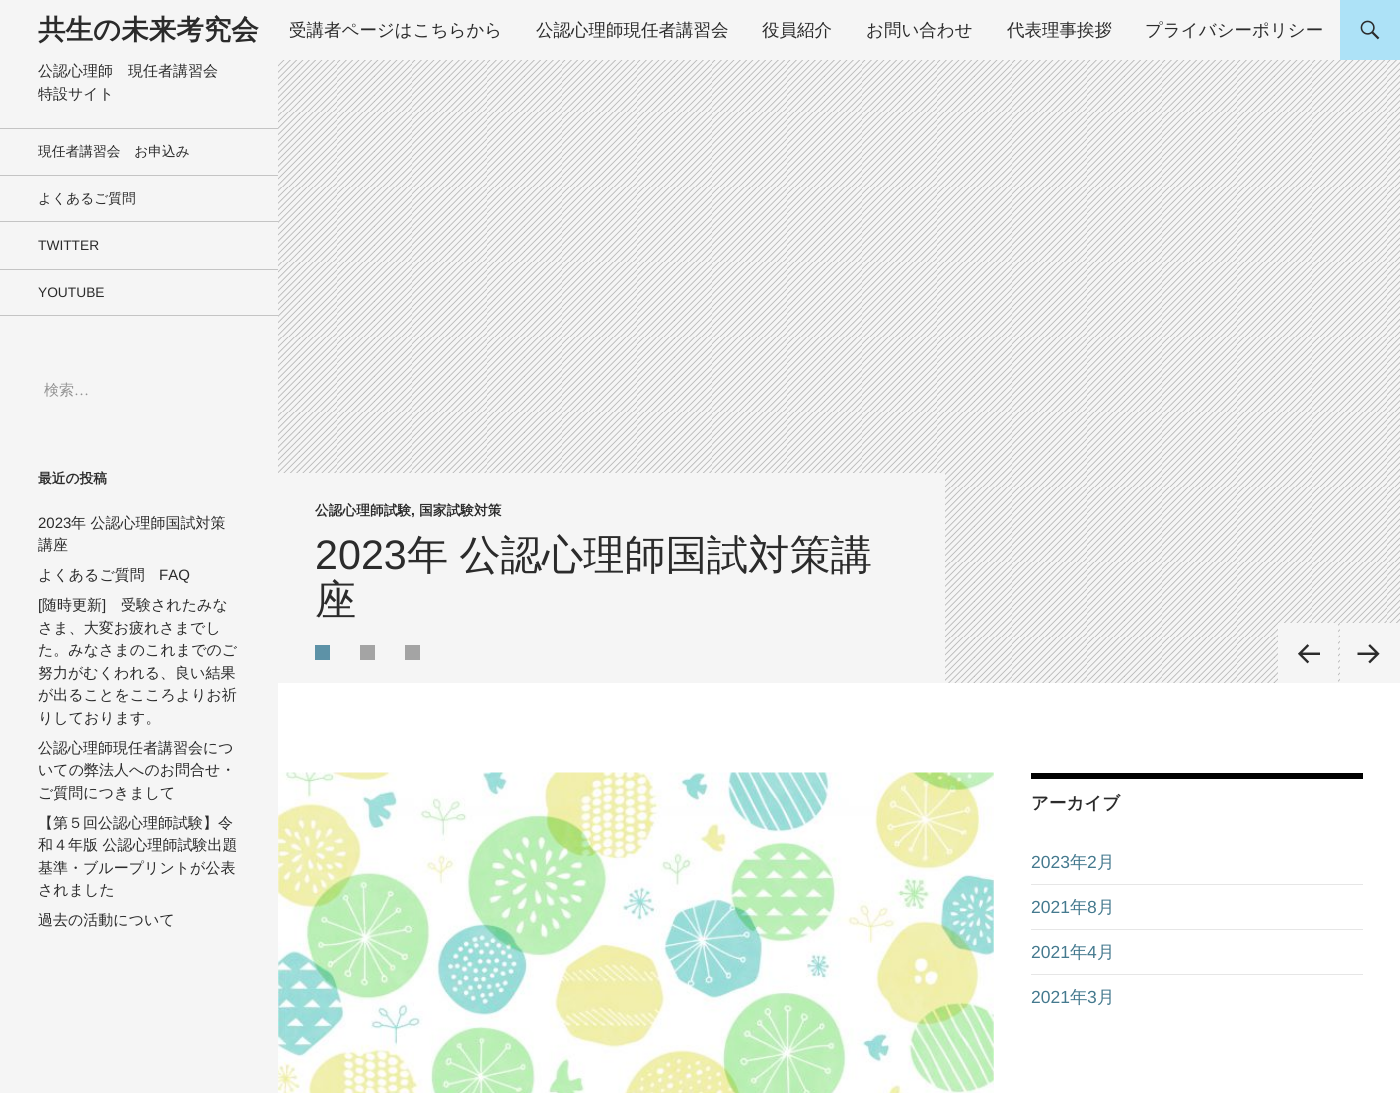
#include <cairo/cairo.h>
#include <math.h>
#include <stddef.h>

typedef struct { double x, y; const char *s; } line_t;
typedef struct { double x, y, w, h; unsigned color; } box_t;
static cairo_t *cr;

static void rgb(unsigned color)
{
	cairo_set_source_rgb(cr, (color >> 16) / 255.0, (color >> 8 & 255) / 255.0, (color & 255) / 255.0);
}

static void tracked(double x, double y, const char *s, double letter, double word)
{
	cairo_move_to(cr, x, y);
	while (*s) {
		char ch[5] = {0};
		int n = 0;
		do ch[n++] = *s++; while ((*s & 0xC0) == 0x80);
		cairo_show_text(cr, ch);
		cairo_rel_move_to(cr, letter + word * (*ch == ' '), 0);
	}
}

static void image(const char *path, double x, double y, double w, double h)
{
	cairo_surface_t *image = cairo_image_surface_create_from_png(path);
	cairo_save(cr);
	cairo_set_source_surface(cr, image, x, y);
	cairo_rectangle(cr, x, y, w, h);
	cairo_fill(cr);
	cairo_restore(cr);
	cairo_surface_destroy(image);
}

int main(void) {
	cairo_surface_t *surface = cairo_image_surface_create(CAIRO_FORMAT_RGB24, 1400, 1093);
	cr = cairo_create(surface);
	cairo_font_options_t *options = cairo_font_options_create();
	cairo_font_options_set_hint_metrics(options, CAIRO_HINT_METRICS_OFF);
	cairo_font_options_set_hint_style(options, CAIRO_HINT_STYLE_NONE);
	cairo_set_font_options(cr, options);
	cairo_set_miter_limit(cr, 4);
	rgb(0xf5f5f5);
	cairo_paint(cr);
	rgb(0xffffff);
	cairo_rectangle(cr, 278, 683, 1122, 410);
	cairo_fill(cr);
	rgb(0xade2f7);
	cairo_rectangle(cr, 1340, 0, 60, 60);
	cairo_fill(cr);
	image("img/1.png", 1360, 20, 20, 20);
	{
		static const box_t items[] = {
			{0, 315, 278, 1, 0xc4c4c4},
			{0, 128, 278, 1, 0xc4c4c4},
			{0, 175, 278, 1, 0xc4c4c4},
			{0, 221, 278, 1, 0xc4c4c4},
			{0, 269, 278, 1, 0xc4c4c4},
		};
		for (size_t i = 0; i < sizeof items / sizeof *items; i++) {
			rgb(items[i].color);
			cairo_rectangle(cr, items[i].x, items[i].y, items[i].w, items[i].h);
			cairo_fill(cr);
		}
	}
	image("img/2.png", 278, 60, 1122, 623);
	{
		static const box_t items[] = {
			{278, 473, 667, 210, 0xf5f5f5},
			{315, 645, 15, 15, 0x5d92a7},
			{360, 645, 15, 15, 0xa4a4a4},
			{405, 645, 15, 15, 0xa4a4a4},
			{1278, 623, 60, 60, 0xf5f5f5},
		};
		for (size_t i = 0; i < sizeof items / sizeof *items; i++) {
			rgb(items[i].color);
			cairo_rectangle(cr, items[i].x, items[i].y, items[i].w, items[i].h);
			cairo_fill(cr);
		}
	}
	image("img/3.png", 1298, 644, 22, 20);
	cairo_rectangle(cr, 1340, 623, 60, 60);
	cairo_fill(cr);
	image("img/4.png", 1357, 644, 23, 20);
	image("img/5.png", 993, 773, 1, 320);
	image("img/6.png", 278, 772, 716, 321);
	{
		static const box_t items[] = {
			{1031, 773, 332, 6, 0x000000},
			{1031, 884, 332, 1, 0xe6e6e6},
			{1031, 929, 332, 1, 0xe6e6e6},
			{1031, 974, 332, 1, 0xe6e6e6},
		};
		for (size_t i = 0; i < sizeof items / sizeof *items; i++) {
			rgb(items[i].color);
			cairo_rectangle(cr, items[i].x, items[i].y, items[i].w, items[i].h);
			cairo_fill(cr);
		}
	}
	cairo_select_font_face(cr, "WenQuanYi Zen Hei", CAIRO_FONT_SLANT_NORMAL, CAIRO_FONT_WEIGHT_BOLD);
	cairo_set_font_size(cr, 27.5);
	rgb(0x2b2b2b);
	cairo_move_to(cr, 38, 39);
	cairo_show_text(cr, "共生の未来考究会");
	cairo_select_font_face(cr, "WenQuanYi Zen Hei Medium", CAIRO_FONT_SLANT_NORMAL, CAIRO_FONT_WEIGHT_NORMAL);
	cairo_set_font_size(cr, 17.5);
	{
		static const line_t items[] = {
			{289, 36, "受講者ページはこちらから"},
			{536, 36, "公認心理師現任者講習会"},
			{762, 36, "役員紹介"},
			{866, 36, "お問い合わせ"},
			{1007, 36, "代表理事挨拶"},
			{1145, 36, "プライバシーポリシー"},
		};
		for (size_t i = 0; i < sizeof items / sizeof *items; i++) {
			cairo_move_to(cr, items[i].x, items[i].y);
			cairo_show_text(cr, items[i].s);
		}
	}
	cairo_set_font_size(cr, 15);
	cairo_move_to(cr, 38, 76);
	cairo_show_text(cr, "公認心理師　現任者講習会");
	cairo_move_to(cr, 38, 99);
	cairo_show_text(cr, "特設サイト");
	cairo_set_font_size(cr, 13.75);
	cairo_move_to(cr, 38, 156);
	cairo_show_text(cr, "現任者講習会　お申込み");
	cairo_move_to(cr, 38, 203);
	cairo_show_text(cr, "よくあるご質問");
	cairo_select_font_face(cr, "Liberation Sans", CAIRO_FONT_SLANT_NORMAL, CAIRO_FONT_WEIGHT_NORMAL);
	cairo_move_to(cr, 38, 250);
	cairo_show_text(cr, "TWITTER");
	cairo_move_to(cr, 38, 297);
	cairo_show_text(cr, "YOUTUBE");
	cairo_select_font_face(cr, "WenQuanYi Zen Hei Medium", CAIRO_FONT_SLANT_NORMAL, CAIRO_FONT_WEIGHT_NORMAL);
	cairo_set_font_size(cr, 15);
	rgb(0x939393);
	cairo_move_to(cr, 44, 395);
	cairo_show_text(cr, "検索");
	cairo_select_font_face(cr, "Liberation Serif", CAIRO_FONT_SLANT_NORMAL, CAIRO_FONT_WEIGHT_NORMAL);
	cairo_move_to(cr, 74, 395);
	cairo_show_text(cr, "…");
	cairo_select_font_face(cr, "WenQuanYi Zen Hei", CAIRO_FONT_SLANT_NORMAL, CAIRO_FONT_WEIGHT_BOLD);
	cairo_set_font_size(cr, 13.75);
	rgb(0x2b2b2b);
	cairo_move_to(cr, 38, 483);
	cairo_show_text(cr, "最近の投稿");
	cairo_select_font_face(cr, "Liberation Sans", CAIRO_FONT_SLANT_NORMAL, CAIRO_FONT_WEIGHT_NORMAL);
	cairo_set_font_size(cr, 15);
	cairo_move_to(cr, 38, 528);
	cairo_show_text(cr, "2023");
	cairo_select_font_face(cr, "WenQuanYi Zen Hei Medium", CAIRO_FONT_SLANT_NORMAL, CAIRO_FONT_WEIGHT_NORMAL);
	{
		static const line_t items[] = {
			{71, 528, "年 公認心理師国試対策"},
			{38, 550, "講座"},
			{38, 580, "よくあるご質問"},
		};
		for (size_t i = 0; i < sizeof items / sizeof *items; i++) {
			cairo_move_to(cr, items[i].x, items[i].y);
			cairo_show_text(cr, items[i].s);
		}
	}
	cairo_select_font_face(cr, "Liberation Sans", CAIRO_FONT_SLANT_NORMAL, CAIRO_FONT_WEIGHT_NORMAL);
	cairo_move_to(cr, 159, 580);
	cairo_show_text(cr, "FAQ");
	cairo_move_to(cr, 38, 610);
	cairo_show_text(cr, "[");
	cairo_select_font_face(cr, "WenQuanYi Zen Hei Medium", CAIRO_FONT_SLANT_NORMAL, CAIRO_FONT_WEIGHT_NORMAL);
	cairo_move_to(cr, 42, 610);
	cairo_show_text(cr, "随時更新");
	cairo_select_font_face(cr, "Liberation Sans", CAIRO_FONT_SLANT_NORMAL, CAIRO_FONT_WEIGHT_NORMAL);
	cairo_move_to(cr, 102, 610);
	cairo_show_text(cr, "]");
	cairo_select_font_face(cr, "WenQuanYi Zen Hei Medium", CAIRO_FONT_SLANT_NORMAL, CAIRO_FONT_WEIGHT_NORMAL);
	{
		static const line_t items[] = {
			{121, 610, "受験されたみな"},
			{38, 633, "さま、大変お疲れさまでし"},
			{38, 655, "た。みなさまのこれまでのご"},
			{38, 678, "努力がむくわれる、良い結果"},
			{38, 700, "が出ることをこころよりお祈"},
			{38, 723, "りしております。"},
			{38, 753, "公認心理師現任者講習会につ"},
			{38, 775, "いての弊法人へのお問合せ・"},
			{38, 798, "ご質問につきまして"},
			{38, 828, "【第５回公認心理師試験】令"},
			{38, 850, "和４年版 公認心理師試験出題"},
			{38, 873, "基準・ブループリントが公表"},
			{38, 895, "されました"},
			{38, 925, "過去の活動について"},
		};
		for (size_t i = 0; i < sizeof items / sizeof *items; i++) {
			cairo_move_to(cr, items[i].x, items[i].y);
			cairo_show_text(cr, items[i].s);
		}
	}
	cairo_select_font_face(cr, "WenQuanYi Zen Hei", CAIRO_FONT_SLANT_NORMAL, CAIRO_FONT_WEIGHT_BOLD);
	cairo_set_font_size(cr, 13.75);
	cairo_move_to(cr, 315, 515);
	cairo_show_text(cr, "公認心理師試験");
	cairo_select_font_face(cr, "Liberation Sans", CAIRO_FONT_SLANT_NORMAL, CAIRO_FONT_WEIGHT_BOLD);
	cairo_move_to(cr, 411, 515);
	cairo_show_text(cr, ",");
	cairo_select_font_face(cr, "WenQuanYi Zen Hei", CAIRO_FONT_SLANT_NORMAL, CAIRO_FONT_WEIGHT_BOLD);
	cairo_move_to(cr, 419, 515);
	cairo_show_text(cr, "国家試験対策");
	cairo_select_font_face(cr, "Liberation Sans", CAIRO_FONT_SLANT_NORMAL, CAIRO_FONT_WEIGHT_NORMAL);
	cairo_set_font_size(cr, 41.25);
	cairo_move_to(cr, 315, 569);
	cairo_show_text(cr, "2023");
	cairo_select_font_face(cr, "WenQuanYi Zen Hei Medium", CAIRO_FONT_SLANT_NORMAL, CAIRO_FONT_WEIGHT_NORMAL);
	tracked(407, 569, "年 公認心理師国試対策講", 0, -1);
	cairo_move_to(cr, 315, 614);
	cairo_show_text(cr, "座");
	cairo_select_font_face(cr, "WenQuanYi Zen Hei", CAIRO_FONT_SLANT_NORMAL, CAIRO_FONT_WEIGHT_BOLD);
	cairo_set_font_size(cr, 17.5);
	cairo_move_to(cr, 1031, 809);
	cairo_show_text(cr, "アーカイブ");
	cairo_select_font_face(cr, "Liberation Sans", CAIRO_FONT_SLANT_NORMAL, CAIRO_FONT_WEIGHT_NORMAL);
	rgb(0x44798e);
	cairo_move_to(cr, 1031, 868);
	cairo_show_text(cr, "2023");
	cairo_select_font_face(cr, "WenQuanYi Zen Hei Medium", CAIRO_FONT_SLANT_NORMAL, CAIRO_FONT_WEIGHT_NORMAL);
	cairo_move_to(cr, 1070, 868);
	cairo_show_text(cr, "年");
	cairo_select_font_face(cr, "Liberation Sans", CAIRO_FONT_SLANT_NORMAL, CAIRO_FONT_WEIGHT_NORMAL);
	cairo_move_to(cr, 1087, 868);
	cairo_show_text(cr, "2");
	cairo_select_font_face(cr, "WenQuanYi Zen Hei Medium", CAIRO_FONT_SLANT_NORMAL, CAIRO_FONT_WEIGHT_NORMAL);
	cairo_move_to(cr, 1097, 868);
	cairo_show_text(cr, "月");
	cairo_select_font_face(cr, "Liberation Sans", CAIRO_FONT_SLANT_NORMAL, CAIRO_FONT_WEIGHT_NORMAL);
	cairo_move_to(cr, 1031, 913);
	cairo_show_text(cr, "2021");
	cairo_select_font_face(cr, "WenQuanYi Zen Hei Medium", CAIRO_FONT_SLANT_NORMAL, CAIRO_FONT_WEIGHT_NORMAL);
	cairo_move_to(cr, 1070, 913);
	cairo_show_text(cr, "年");
	cairo_select_font_face(cr, "Liberation Sans", CAIRO_FONT_SLANT_NORMAL, CAIRO_FONT_WEIGHT_NORMAL);
	cairo_move_to(cr, 1087, 913);
	cairo_show_text(cr, "8");
	cairo_select_font_face(cr, "WenQuanYi Zen Hei Medium", CAIRO_FONT_SLANT_NORMAL, CAIRO_FONT_WEIGHT_NORMAL);
	cairo_move_to(cr, 1097, 913);
	cairo_show_text(cr, "月");
	cairo_select_font_face(cr, "Liberation Sans", CAIRO_FONT_SLANT_NORMAL, CAIRO_FONT_WEIGHT_NORMAL);
	cairo_move_to(cr, 1031, 958);
	cairo_show_text(cr, "2021");
	cairo_select_font_face(cr, "WenQuanYi Zen Hei Medium", CAIRO_FONT_SLANT_NORMAL, CAIRO_FONT_WEIGHT_NORMAL);
	cairo_move_to(cr, 1070, 958);
	cairo_show_text(cr, "年");
	cairo_select_font_face(cr, "Liberation Sans", CAIRO_FONT_SLANT_NORMAL, CAIRO_FONT_WEIGHT_NORMAL);
	cairo_move_to(cr, 1087, 958);
	cairo_show_text(cr, "4");
	cairo_select_font_face(cr, "WenQuanYi Zen Hei Medium", CAIRO_FONT_SLANT_NORMAL, CAIRO_FONT_WEIGHT_NORMAL);
	cairo_move_to(cr, 1097, 958);
	cairo_show_text(cr, "月");
	cairo_select_font_face(cr, "Liberation Sans", CAIRO_FONT_SLANT_NORMAL, CAIRO_FONT_WEIGHT_NORMAL);
	cairo_move_to(cr, 1031, 1003);
	cairo_show_text(cr, "2021");
	cairo_select_font_face(cr, "WenQuanYi Zen Hei Medium", CAIRO_FONT_SLANT_NORMAL, CAIRO_FONT_WEIGHT_NORMAL);
	cairo_move_to(cr, 1070, 1003);
	cairo_show_text(cr, "年");
	cairo_select_font_face(cr, "Liberation Sans", CAIRO_FONT_SLANT_NORMAL, CAIRO_FONT_WEIGHT_NORMAL);
	cairo_move_to(cr, 1087, 1003);
	cairo_show_text(cr, "3");
	cairo_select_font_face(cr, "WenQuanYi Zen Hei Medium", CAIRO_FONT_SLANT_NORMAL, CAIRO_FONT_WEIGHT_NORMAL);
	cairo_move_to(cr, 1097, 1003);
	cairo_show_text(cr, "月");
	cairo_surface_write_to_png(surface, "page.png");
	cairo_font_options_destroy(options);
	cairo_destroy(cr);
	cairo_surface_destroy(surface);
	return 0;
}
